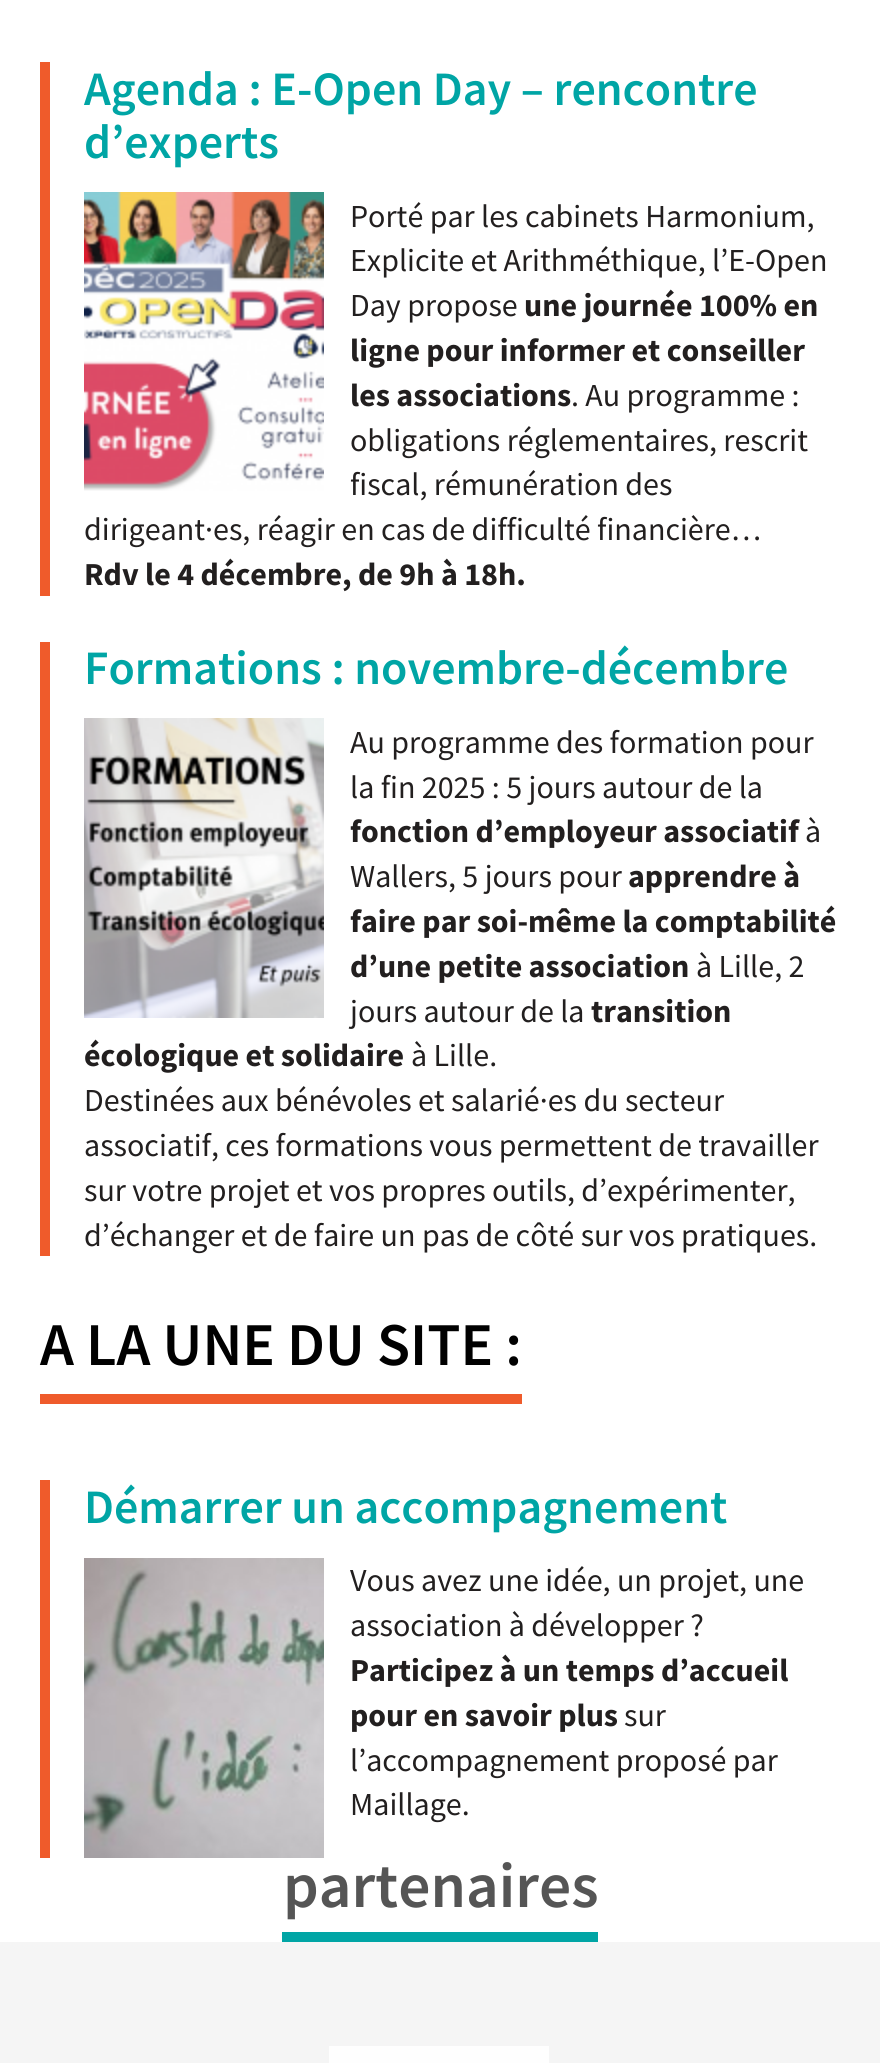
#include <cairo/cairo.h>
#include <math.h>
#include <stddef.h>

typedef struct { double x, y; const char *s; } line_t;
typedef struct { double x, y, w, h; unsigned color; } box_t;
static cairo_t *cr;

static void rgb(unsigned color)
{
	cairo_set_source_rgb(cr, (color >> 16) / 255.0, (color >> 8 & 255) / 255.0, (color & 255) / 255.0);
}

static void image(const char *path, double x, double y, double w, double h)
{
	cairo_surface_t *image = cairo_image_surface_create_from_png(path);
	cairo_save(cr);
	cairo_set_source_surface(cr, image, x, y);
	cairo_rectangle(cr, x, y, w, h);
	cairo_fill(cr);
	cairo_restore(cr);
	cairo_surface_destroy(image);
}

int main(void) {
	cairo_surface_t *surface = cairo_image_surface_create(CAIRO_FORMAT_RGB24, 880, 2063);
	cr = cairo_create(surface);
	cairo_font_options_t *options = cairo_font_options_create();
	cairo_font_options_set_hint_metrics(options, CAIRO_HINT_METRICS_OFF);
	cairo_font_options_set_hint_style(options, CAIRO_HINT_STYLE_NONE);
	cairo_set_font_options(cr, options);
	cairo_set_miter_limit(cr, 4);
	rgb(0xffffff);
	cairo_paint(cr);
	rgb(0xef5b2b);
	cairo_rectangle(cr, 40, 62, 10, 534);
	cairo_fill(cr);
	image("img/1.png", 84, 192, 240, 299);
	cairo_rectangle(cr, 40, 642, 10, 614);
	cairo_fill(cr);
	image("img/2.png", 84, 718, 240, 300);
	cairo_rectangle(cr, 40, 1394, 482, 10);
	cairo_fill(cr);
	cairo_rectangle(cr, 40, 1480, 10, 378);
	cairo_fill(cr);
	image("img/3.png", 84, 1558, 240, 300);
	{
		static const box_t items[] = {
			{282, 1932, 316, 10, 0x00a5a5},
			{0, 1942, 880, 121, 0xf5f5f5},
			{329, 2046, 220, 17, 0xfefefe},
		};
		for (size_t i = 0; i < sizeof items / sizeof *items; i++) {
			rgb(items[i].color);
			cairo_rectangle(cr, items[i].x, items[i].y, items[i].w, items[i].h);
			cairo_fill(cr);
		}
	}
	cairo_select_font_face(cr, "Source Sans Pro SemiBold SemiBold", CAIRO_FONT_SLANT_NORMAL, CAIRO_FONT_WEIGHT_NORMAL);
	cairo_set_font_size(cr, 48);
	rgb(0x00a5a5);
	cairo_move_to(cr, 84, 105);
	cairo_show_text(cr, "Agenda : E-Open Day – rencontre");
	cairo_move_to(cr, 84, 158);
	cairo_show_text(cr, "d’experts");
	cairo_select_font_face(cr, "Source Sans Pro", CAIRO_FONT_SLANT_NORMAL, CAIRO_FONT_WEIGHT_NORMAL);
	cairo_set_font_size(cr, 32);
	rgb(0x221f1f);
	{
		static const line_t items[] = {
			{350, 227, "Porté par les cabinets Harmonium,"},
			{350, 271, "Explicite et Arithméthique, l’E-Open"},
			{350, 316, "Day propose"},
		};
		for (size_t i = 0; i < sizeof items / sizeof *items; i++) {
			cairo_move_to(cr, items[i].x, items[i].y);
			cairo_show_text(cr, items[i].s);
		}
	}
	cairo_select_font_face(cr, "Source Sans Pro", CAIRO_FONT_SLANT_NORMAL, CAIRO_FONT_WEIGHT_BOLD);
	{
		static const line_t items[] = {
			{524, 316, "une journée 100% en"},
			{350, 361, "ligne pour informer et conseiller"},
			{350, 406, "les associations"},
		};
		for (size_t i = 0; i < sizeof items / sizeof *items; i++) {
			cairo_move_to(cr, items[i].x, items[i].y);
			cairo_show_text(cr, items[i].s);
		}
	}
	cairo_select_font_face(cr, "Source Sans Pro", CAIRO_FONT_SLANT_NORMAL, CAIRO_FONT_WEIGHT_NORMAL);
	{
		static const line_t items[] = {
			{571, 406, ". Au programme :"},
			{350, 451, "obligations réglementaires, rescrit"},
			{350, 495, "fiscal, rémunération des"},
			{84, 540, "dirigeant·es, réagir en cas de difficulté financière…"},
		};
		for (size_t i = 0; i < sizeof items / sizeof *items; i++) {
			cairo_move_to(cr, items[i].x, items[i].y);
			cairo_show_text(cr, items[i].s);
		}
	}
	cairo_select_font_face(cr, "Source Sans Pro", CAIRO_FONT_SLANT_NORMAL, CAIRO_FONT_WEIGHT_BOLD);
	cairo_move_to(cr, 84, 585);
	cairo_show_text(cr, "Rdv le 4 décembre, de 9h à 18h.");
	cairo_select_font_face(cr, "Source Sans Pro SemiBold SemiBold", CAIRO_FONT_SLANT_NORMAL, CAIRO_FONT_WEIGHT_NORMAL);
	cairo_set_font_size(cr, 48);
	rgb(0x00a5a5);
	cairo_move_to(cr, 84, 684);
	cairo_show_text(cr, "Formations : novembre-décembre");
	cairo_select_font_face(cr, "Source Sans Pro", CAIRO_FONT_SLANT_NORMAL, CAIRO_FONT_WEIGHT_NORMAL);
	cairo_set_font_size(cr, 32);
	rgb(0x221f1f);
	cairo_move_to(cr, 350, 753);
	cairo_show_text(cr, "Au programme des formation pour");
	cairo_move_to(cr, 350, 798);
	cairo_show_text(cr, "la fin 2025 : 5 jours autour de la");
	cairo_select_font_face(cr, "Source Sans Pro", CAIRO_FONT_SLANT_NORMAL, CAIRO_FONT_WEIGHT_BOLD);
	cairo_move_to(cr, 350, 842);
	cairo_show_text(cr, "fonction d’employeur associatif");
	cairo_select_font_face(cr, "Source Sans Pro", CAIRO_FONT_SLANT_NORMAL, CAIRO_FONT_WEIGHT_NORMAL);
	cairo_move_to(cr, 805, 842);
	cairo_show_text(cr, "à");
	cairo_move_to(cr, 350, 887);
	cairo_show_text(cr, "Wallers, 5 jours pour");
	cairo_select_font_face(cr, "Source Sans Pro", CAIRO_FONT_SLANT_NORMAL, CAIRO_FONT_WEIGHT_BOLD);
	{
		static const line_t items[] = {
			{628, 887, "apprendre à"},
			{350, 932, "faire par soi-même la comptabilité"},
			{350, 977, "d’une petite association"},
		};
		for (size_t i = 0; i < sizeof items / sizeof *items; i++) {
			cairo_move_to(cr, items[i].x, items[i].y);
			cairo_show_text(cr, items[i].s);
		}
	}
	cairo_select_font_face(cr, "Source Sans Pro", CAIRO_FONT_SLANT_NORMAL, CAIRO_FONT_WEIGHT_NORMAL);
	cairo_move_to(cr, 696, 977);
	cairo_show_text(cr, "à Lille, 2");
	cairo_move_to(cr, 350, 1022);
	cairo_show_text(cr, "jours autour de la");
	cairo_select_font_face(cr, "Source Sans Pro", CAIRO_FONT_SLANT_NORMAL, CAIRO_FONT_WEIGHT_BOLD);
	cairo_move_to(cr, 591, 1022);
	cairo_show_text(cr, "transition");
	cairo_move_to(cr, 84, 1066);
	cairo_show_text(cr, "écologique et solidaire");
	cairo_select_font_face(cr, "Source Sans Pro", CAIRO_FONT_SLANT_NORMAL, CAIRO_FONT_WEIGHT_NORMAL);
	{
		static const line_t items[] = {
			{411, 1066, "à Lille."},
			{84, 1111, "Destinées aux bénévoles et salarié·es du secteur"},
			{84, 1156, "associatif, ces formations vous permettent de travailler"},
			{84, 1201, "sur votre projet et vos propres outils, d’expérimenter,"},
			{84, 1246, "d’échanger et de faire un pas de côté sur vos pratiques."},
		};
		for (size_t i = 0; i < sizeof items / sizeof *items; i++) {
			cairo_move_to(cr, items[i].x, items[i].y);
			cairo_show_text(cr, items[i].s);
		}
	}
	cairo_select_font_face(cr, "Source Sans Pro SemiBold SemiBold", CAIRO_FONT_SLANT_NORMAL, CAIRO_FONT_WEIGHT_NORMAL);
	cairo_set_font_size(cr, 60.75);
	rgb(0x000000);
	cairo_move_to(cr, 40, 1365);
	cairo_show_text(cr, "A LA UNE DU SITE :");
	cairo_set_font_size(cr, 48);
	rgb(0x00a5a5);
	cairo_move_to(cr, 84, 1523);
	cairo_show_text(cr, "Démarrer un accompagnement");
	cairo_select_font_face(cr, "Source Sans Pro", CAIRO_FONT_SLANT_NORMAL, CAIRO_FONT_WEIGHT_NORMAL);
	cairo_set_font_size(cr, 32);
	rgb(0x221f1f);
	cairo_move_to(cr, 350, 1591);
	cairo_show_text(cr, "Vous avez une idée, un projet, une");
	cairo_move_to(cr, 350, 1636);
	cairo_show_text(cr, "association à développer ?");
	cairo_select_font_face(cr, "Source Sans Pro", CAIRO_FONT_SLANT_NORMAL, CAIRO_FONT_WEIGHT_BOLD);
	cairo_move_to(cr, 350, 1681);
	cairo_show_text(cr, "Participez à un temps d’accueil");
	cairo_move_to(cr, 350, 1726);
	cairo_show_text(cr, "pour en savoir plus");
	cairo_select_font_face(cr, "Source Sans Pro", CAIRO_FONT_SLANT_NORMAL, CAIRO_FONT_WEIGHT_NORMAL);
	{
		static const line_t items[] = {
			{624, 1726, "sur"},
			{350, 1771, "l’accompagnement proposé par"},
			{350, 1815, "Maillage."},
		};
		for (size_t i = 0; i < sizeof items / sizeof *items; i++) {
			cairo_move_to(cr, items[i].x, items[i].y);
			cairo_show_text(cr, items[i].s);
		}
	}
	cairo_select_font_face(cr, "Source Sans Pro SemiBold SemiBold", CAIRO_FONT_SLANT_NORMAL, CAIRO_FONT_WEIGHT_NORMAL);
	cairo_set_font_size(cr, 63.5);
	rgb(0x555555);
	cairo_move_to(cr, 283, 1907);
	cairo_show_text(cr, "partenaires");
	cairo_surface_write_to_png(surface, "page.png");
	cairo_font_options_destroy(options);
	cairo_destroy(cr);
	cairo_surface_destroy(surface);
	return 0;
}
